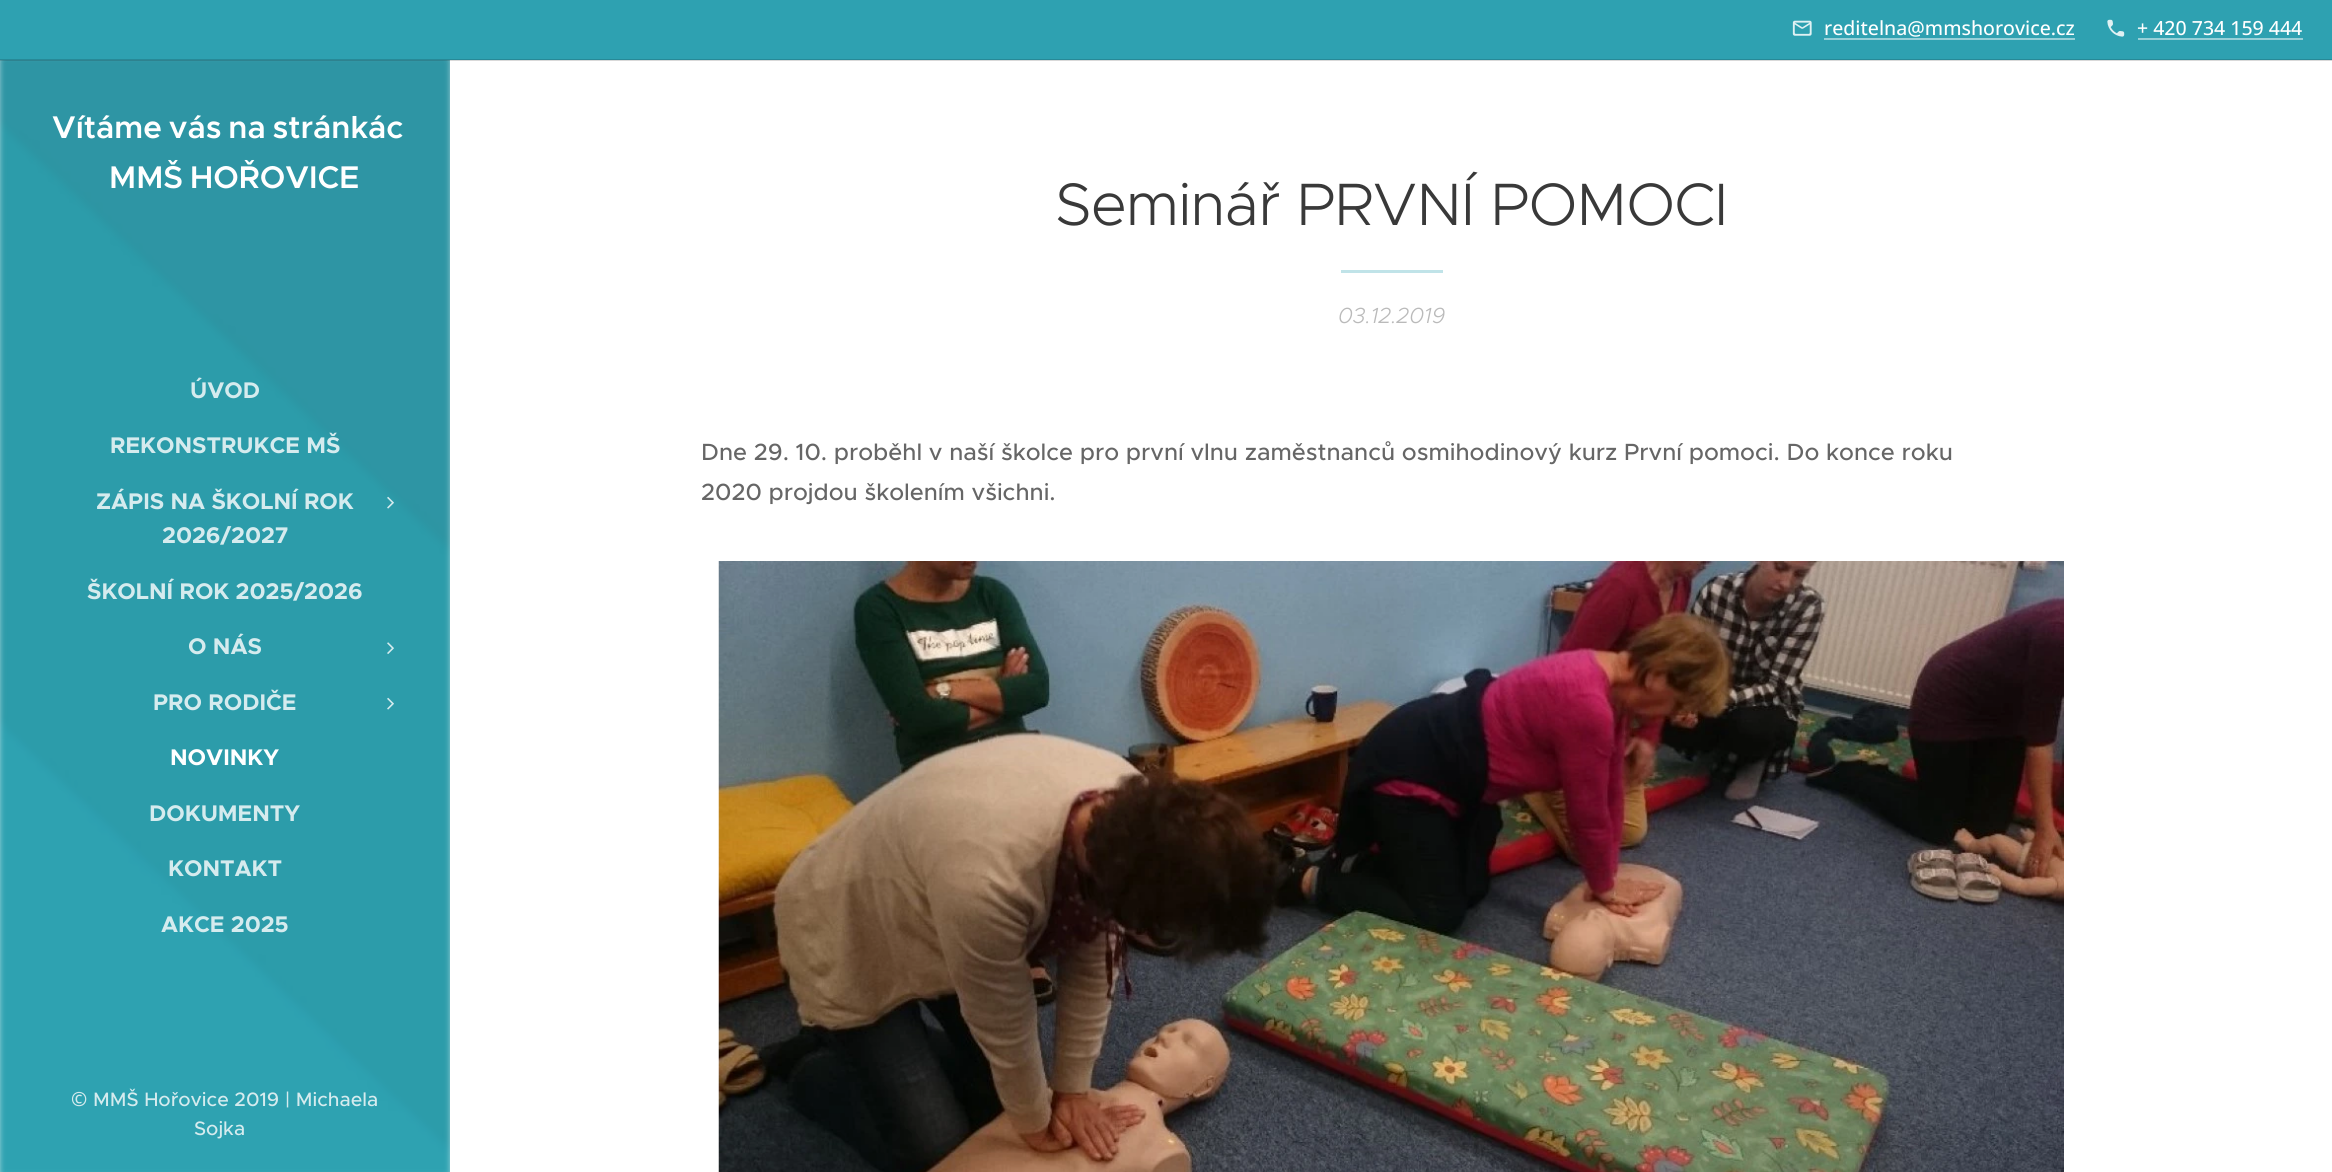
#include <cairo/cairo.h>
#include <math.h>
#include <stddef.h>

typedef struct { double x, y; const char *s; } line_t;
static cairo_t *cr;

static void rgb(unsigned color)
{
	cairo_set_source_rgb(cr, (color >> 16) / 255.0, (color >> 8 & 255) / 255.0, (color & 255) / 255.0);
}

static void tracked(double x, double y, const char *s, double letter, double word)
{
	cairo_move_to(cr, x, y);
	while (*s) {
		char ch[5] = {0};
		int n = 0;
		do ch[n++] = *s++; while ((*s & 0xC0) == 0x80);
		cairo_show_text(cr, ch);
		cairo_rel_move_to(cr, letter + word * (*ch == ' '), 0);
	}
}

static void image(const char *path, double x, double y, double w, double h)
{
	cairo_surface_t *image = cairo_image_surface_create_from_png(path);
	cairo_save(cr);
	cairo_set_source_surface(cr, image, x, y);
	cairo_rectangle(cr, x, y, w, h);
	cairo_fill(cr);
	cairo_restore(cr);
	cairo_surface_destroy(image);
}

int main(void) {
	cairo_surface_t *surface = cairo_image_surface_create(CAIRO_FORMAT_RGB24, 2332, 1172);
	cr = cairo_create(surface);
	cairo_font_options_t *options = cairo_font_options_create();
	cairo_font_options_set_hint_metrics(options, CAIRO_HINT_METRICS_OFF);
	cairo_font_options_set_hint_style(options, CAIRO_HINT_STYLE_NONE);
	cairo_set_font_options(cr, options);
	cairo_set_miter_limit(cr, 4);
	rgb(0xffffff);
	cairo_paint(cr);
	rgb(0x2ea1b1);
	cairo_rectangle(cr, 0, 0, 2332, 60);
	cairo_fill(cr);
	image("img/1.png", 1792, 20, 20, 16);
	rgb(0x97d0d8);
	cairo_rectangle(cr, 1824, 38, 251, 2);
	cairo_fill(cr);
	image("img/2.png", 2107, 19, 18, 18);
	cairo_rectangle(cr, 2138, 38, 165, 2);
	cairo_fill(cr);
	image("img/3.png", 0, 60, 450, 1112);
	cairo_set_source_rgba(cr, 0, 0, 0, 0.15);
	cairo_rectangle(cr, 0, 59, 2332, 2);
	cairo_fill(cr);
	image("img/4.png", 387, 496, 7, 13);
	image("img/5.png", 387, 642, 7, 12);
	image("img/6.png", 387, 697, 7, 13);
	rgb(0xc0e3e8);
	cairo_rectangle(cr, 1341, 270, 102, 3);
	cairo_fill(cr);
	image("img/7.png", 718, 561, 1346, 611);
	cairo_select_font_face(cr, "Open Sans Medium", CAIRO_FONT_SLANT_NORMAL, CAIRO_FONT_WEIGHT_NORMAL);
	cairo_set_font_size(cr, 19.5);
	rgb(0xffffff);
	cairo_move_to(cr, 1824, 35);
	cairo_show_text(cr, "reditelna@mmshorovice.cz");
	cairo_move_to(cr, 2137, 35);
	cairo_show_text(cr, "+ 420 734 159 444");
	cairo_select_font_face(cr, "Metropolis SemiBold", CAIRO_FONT_SLANT_NORMAL, CAIRO_FONT_WEIGHT_NORMAL);
	cairo_set_font_size(cr, 31.5);
	tracked(52, 138, "Vítáme vás na stránkác", 0, -2);
	tracked(109, 188, "MMŠ HOŘOVICE", 0, -2);
	cairo_select_font_face(cr, "Metropolis", CAIRO_FONT_SLANT_NORMAL, CAIRO_FONT_WEIGHT_BOLD);
	cairo_set_font_size(cr, 22.75);
	rgb(0xd5ebee);
	{
		static const line_t items[] = {
			{190, 398, "ÚVOD"},
			{110, 453, "REKONSTRUKCE MŠ"},
			{96, 509, "ZÁPIS NA ŠKOLNÍ ROK"},
			{162, 543, "2026/2027"},
			{87, 599, "ŠKOLNÍ ROK 2025/2026"},
			{188, 654, "O NÁS"},
			{153, 710, "PRO RODIČE"},
		};
		for (size_t i = 0; i < sizeof items / sizeof *items; i++) {
			cairo_move_to(cr, items[i].x, items[i].y);
			cairo_show_text(cr, items[i].s);
		}
	}
	rgb(0xffffff);
	cairo_move_to(cr, 170, 765);
	cairo_show_text(cr, "NOVINKY");
	rgb(0xd5ebee);
	{
		static const line_t items[] = {
			{149, 821, "DOKUMENTY"},
			{168, 876, "KONTAKT"},
			{161, 932, "AKCE 2025"},
		};
		for (size_t i = 0; i < sizeof items / sizeof *items; i++) {
			cairo_move_to(cr, items[i].x, items[i].y);
			cairo_show_text(cr, items[i].s);
		}
	}
	cairo_select_font_face(cr, "Metropolis Light", CAIRO_FONT_SLANT_NORMAL, CAIRO_FONT_WEIGHT_NORMAL);
	cairo_set_font_size(cr, 60);
	rgb(0x393939);
	tracked(1055, 225, "Seminář PRVNÍ POMOCI", -0.6, 0);
	cairo_select_font_face(cr, "Metropolis Light", CAIRO_FONT_SLANT_ITALIC, CAIRO_FONT_WEIGHT_NORMAL);
	cairo_set_font_size(cr, 22);
	rgb(0xbababa);
	cairo_move_to(cr, 1338, 323);
	cairo_show_text(cr, "03.12.2019");
	cairo_select_font_face(cr, "Metropolis Medium", CAIRO_FONT_SLANT_NORMAL, CAIRO_FONT_WEIGHT_NORMAL);
	cairo_set_font_size(cr, 23.55);
	rgb(0x666666);
	cairo_move_to(cr, 701, 460);
	cairo_show_text(cr, "Dne 29. 10. proběhl v naší školce pro první vlnu zaměstnanců osmihodinový kurz První pomoci. Do konce roku");
	cairo_move_to(cr, 701, 500);
	cairo_show_text(cr, "2020 projdou školením všichni.");
	cairo_select_font_face(cr, "Noto Sans Medium", CAIRO_FONT_SLANT_NORMAL, CAIRO_FONT_WEIGHT_NORMAL);
	cairo_set_font_size(cr, 19.5);
	rgb(0xd5ebee);
	cairo_move_to(cr, 71, 1106);
	cairo_show_text(cr, "©");
	cairo_select_font_face(cr, "Metropolis Medium", CAIRO_FONT_SLANT_NORMAL, CAIRO_FONT_WEIGHT_NORMAL);
	cairo_move_to(cr, 93, 1106);
	cairo_show_text(cr, "MMŠ Hořovice 2019 | Michaela");
	cairo_move_to(cr, 194, 1135);
	cairo_show_text(cr, "Sojka");
	cairo_surface_write_to_png(surface, "page.png");
	cairo_font_options_destroy(options);
	cairo_destroy(cr);
	cairo_surface_destroy(surface);
	return 0;
}
